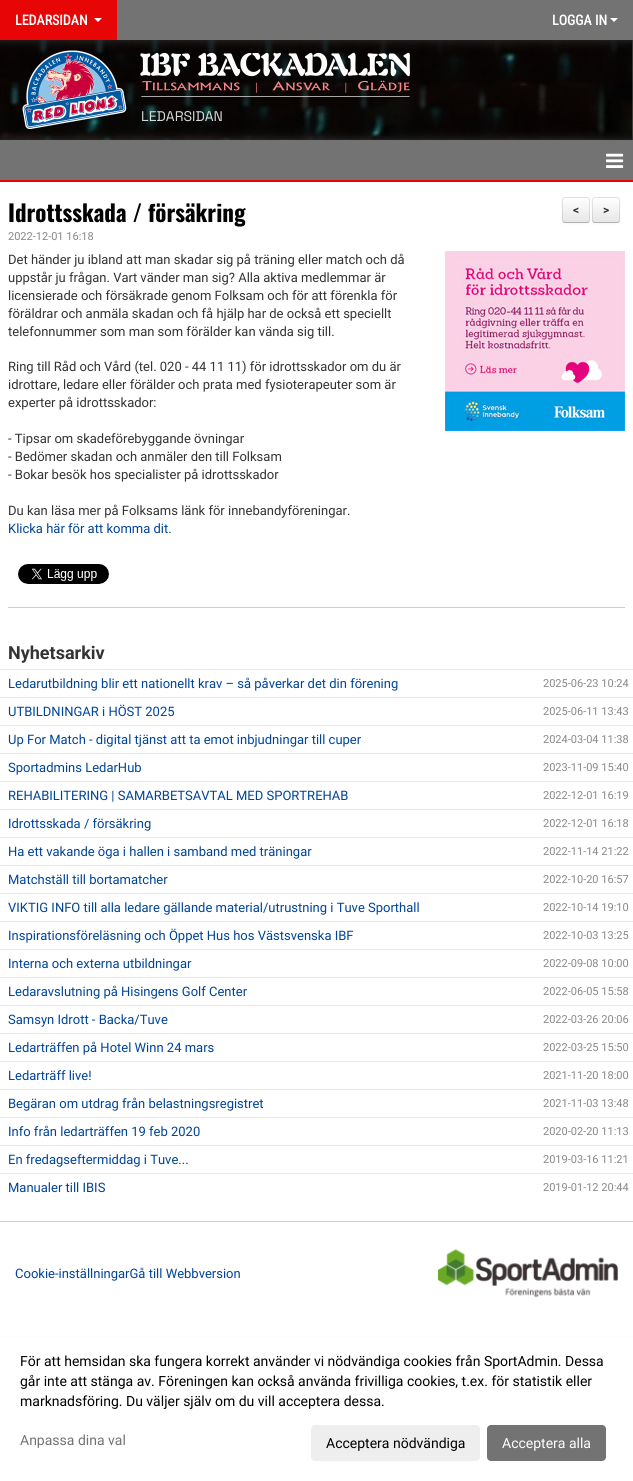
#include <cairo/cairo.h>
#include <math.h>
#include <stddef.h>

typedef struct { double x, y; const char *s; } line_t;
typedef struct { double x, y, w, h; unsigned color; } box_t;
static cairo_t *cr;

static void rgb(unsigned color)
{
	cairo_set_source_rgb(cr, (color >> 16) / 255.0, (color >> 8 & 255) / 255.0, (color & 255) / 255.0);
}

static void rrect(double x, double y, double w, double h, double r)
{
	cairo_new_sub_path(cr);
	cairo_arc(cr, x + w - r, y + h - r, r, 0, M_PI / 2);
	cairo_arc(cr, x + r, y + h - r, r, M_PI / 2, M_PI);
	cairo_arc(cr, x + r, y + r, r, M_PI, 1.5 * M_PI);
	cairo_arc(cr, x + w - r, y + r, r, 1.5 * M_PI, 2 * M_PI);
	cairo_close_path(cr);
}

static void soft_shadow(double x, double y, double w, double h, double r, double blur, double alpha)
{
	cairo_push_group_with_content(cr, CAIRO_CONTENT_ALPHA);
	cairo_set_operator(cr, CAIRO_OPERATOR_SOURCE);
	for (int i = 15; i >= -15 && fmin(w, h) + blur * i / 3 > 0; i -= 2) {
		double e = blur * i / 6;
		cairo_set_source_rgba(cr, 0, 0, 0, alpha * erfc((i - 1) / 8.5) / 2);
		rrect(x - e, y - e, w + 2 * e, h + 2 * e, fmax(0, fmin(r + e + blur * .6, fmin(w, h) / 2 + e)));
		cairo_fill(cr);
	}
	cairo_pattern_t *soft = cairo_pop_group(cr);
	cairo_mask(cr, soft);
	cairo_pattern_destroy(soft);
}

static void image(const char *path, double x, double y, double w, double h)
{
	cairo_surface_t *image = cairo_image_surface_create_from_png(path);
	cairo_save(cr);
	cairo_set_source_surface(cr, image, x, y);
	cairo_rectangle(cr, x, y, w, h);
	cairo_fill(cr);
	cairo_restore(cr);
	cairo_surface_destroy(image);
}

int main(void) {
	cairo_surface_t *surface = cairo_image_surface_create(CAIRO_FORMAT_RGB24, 633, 1481);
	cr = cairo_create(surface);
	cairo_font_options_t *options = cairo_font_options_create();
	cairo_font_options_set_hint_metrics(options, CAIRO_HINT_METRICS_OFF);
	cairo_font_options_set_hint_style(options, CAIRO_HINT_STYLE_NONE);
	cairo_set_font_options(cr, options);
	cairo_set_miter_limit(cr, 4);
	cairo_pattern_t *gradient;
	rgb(0xffffff);
	cairo_paint(cr);
	image("img/1.png", 0, 40, 633, 100);
	rgb(0x333333);
	soft_shadow(0, 0, 633, 40, 0, 5, 1);
	rgb(0x737373);
	cairo_rectangle(cr, 117, 0, 516, 40);
	cairo_fill(cr);
	rgb(0xe80505);
	cairo_rectangle(cr, 0, 0, 117, 40);
	cairo_fill(cr);
	rgb(0xffffff);
	cairo_new_path(cr);
	cairo_move_to(cr, 94, 18);
	cairo_line_to(cr, 102, 18);
	cairo_line_to(cr, 98, 22);
	cairo_close_path(cr);
	cairo_fill(cr);
	cairo_new_path(cr);
	cairo_move_to(cr, 610, 18);
	cairo_line_to(cr, 618, 18);
	cairo_line_to(cr, 614, 22);
	cairo_close_path(cr);
	cairo_fill(cr);
	rgb(0x333333);
	soft_shadow(0, 140, 633, 1185, 0, 5, 1);
	image("img/2.png", 22, 50, 388, 79);
	{
		static const box_t items[] = {
			{0, 182, 633, 1039, 0xffffff},
			{0, 140, 633, 40, 0x737373},
			{0, 180, 633, 2, 0xe80505},
		};
		for (size_t i = 0; i < sizeof items / sizeof *items; i++) {
			rgb(items[i].color);
			cairo_rectangle(cr, items[i].x, items[i].y, items[i].w, items[i].h);
			cairo_fill(cr);
		}
	}
	image("img/3.png", 606, 153, 18, 15);
	image("img/4.png", 445, 251, 180, 180);
	image("img/5.png", 18, 564, 91, 20);
	rgb(0xcccccc);
	cairo_rectangle(cr, 8, 607, 617, 1);
	cairo_fill(cr);
	rgb(0x000000);
	soft_shadow(592, 198, 28, 26, 3, 1, 0.05);
	rgb(0xf5f5f5);
	rrect(592, 197, 28, 26, 3);
	cairo_fill(cr);
	cairo_save(cr);
	rrect(592, 197, 28, 26, 3);
	cairo_clip(cr);
	gradient = cairo_pattern_create_linear(606, 198, 606, 222);
	cairo_pattern_add_color_stop_rgba(gradient, 0, 1, 1, 1, 1);
	cairo_pattern_add_color_stop_rgba(gradient, 1, 0.902, 0.902, 0.902, 1);
	cairo_set_source(cr, gradient);
	cairo_pattern_destroy(gradient);
	cairo_rectangle(cr, 592, 198, 28, 24);
	cairo_fill(cr);
	cairo_restore(cr);
	cairo_new_path(cr);
	cairo_move_to(cr, 619, 222);
	cairo_curve_to(cr, 618.5, 222, 617.5, 222.5, 617, 222.5);
	cairo_line_to(cr, 595, 222.5);
	cairo_curve_to(cr, 594.5, 222.5, 593.5, 222, 593, 222);
	rgb(0xb3b3b3);
	cairo_set_line_width(cr, 1);
	cairo_stroke(cr);
	cairo_new_path(cr);
	cairo_move_to(cr, 593, 222);
	cairo_curve_to(cr, 592, 220.5, 592.5, 218, 592.5, 216.5);
	cairo_line_to(cr, 592.5, 210);
	cairo_curve_to(cr, 592.5, 195, 590.5, 197.5, 606, 197.5);
	cairo_curve_to(cr, 621.5, 197.5, 619.5, 195, 619.5, 210);
	cairo_line_to(cr, 619.5, 216.5);
	cairo_curve_to(cr, 619.5, 218, 620, 220.5, 619, 222);
	cairo_set_source_rgba(cr, 0, 0, 0, 0.1);
	cairo_stroke(cr);
	rgb(0x000000);
	soft_shadow(562, 198, 28, 26, 3, 1, 0.05);
	rgb(0xf5f5f5);
	rrect(562, 197, 28, 26, 3);
	cairo_fill(cr);
	cairo_save(cr);
	rrect(562, 197, 28, 26, 3);
	cairo_clip(cr);
	gradient = cairo_pattern_create_linear(576, 198, 576, 222);
	cairo_pattern_add_color_stop_rgba(gradient, 0, 1, 1, 1, 1);
	cairo_pattern_add_color_stop_rgba(gradient, 1, 0.902, 0.902, 0.902, 1);
	cairo_set_source(cr, gradient);
	cairo_pattern_destroy(gradient);
	cairo_rectangle(cr, 562, 198, 28, 24);
	cairo_fill(cr);
	cairo_restore(cr);
	cairo_new_path(cr);
	cairo_move_to(cr, 589, 222);
	cairo_curve_to(cr, 588.5, 222, 587.5, 222.5, 587, 222.5);
	cairo_line_to(cr, 565, 222.5);
	cairo_curve_to(cr, 564.5, 222.5, 563.5, 222, 563, 222);
	rgb(0xb3b3b3);
	cairo_stroke(cr);
	cairo_new_path(cr);
	cairo_move_to(cr, 563, 222);
	cairo_curve_to(cr, 562, 220.5, 562.5, 218, 562.5, 216.5);
	cairo_line_to(cr, 562.5, 210);
	cairo_curve_to(cr, 562.5, 195, 560.5, 197.5, 576, 197.5);
	cairo_curve_to(cr, 591.5, 197.5, 589.5, 195, 589.5, 210);
	cairo_line_to(cr, 589.5, 216.5);
	cairo_curve_to(cr, 589.5, 218, 590, 220.5, 589, 222);
	cairo_set_source_rgba(cr, 0, 0, 0, 0.1);
	cairo_stroke(cr);
	{
		static const box_t items[] = {
			{0, 669, 633, 1, 0xe8e8e8},
			{0, 697, 633, 1, 0xe8e8e8},
			{0, 725, 633, 1, 0xe8e8e8},
			{0, 753, 633, 1, 0xe8e8e8},
			{0, 781, 633, 1, 0xe8e8e8},
			{0, 809, 633, 1, 0xe8e8e8},
			{0, 837, 633, 1, 0xe8e8e8},
			{0, 865, 633, 1, 0xe8e8e8},
			{0, 893, 633, 1, 0xe8e8e8},
			{0, 921, 633, 1, 0xe8e8e8},
			{0, 949, 633, 1, 0xe8e8e8},
			{0, 977, 633, 1, 0xe8e8e8},
			{0, 1005, 633, 1, 0xe8e8e8},
			{0, 1033, 633, 1, 0xe8e8e8},
			{0, 1061, 633, 1, 0xe8e8e8},
			{0, 1089, 633, 1, 0xe8e8e8},
			{0, 1117, 633, 1, 0xe8e8e8},
			{0, 1145, 633, 1, 0xe8e8e8},
			{0, 1173, 633, 1, 0xe8e8e8},
			{0, 1222, 633, 114, 0xffffff},
			{0, 1221, 633, 1, 0xcccccc},
		};
		for (size_t i = 0; i < sizeof items / sizeof *items; i++) {
			rgb(items[i].color);
			cairo_rectangle(cr, items[i].x, items[i].y, items[i].w, items[i].h);
			cairo_fill(cr);
		}
	}
	image("img/6.png", 438, 1248, 180, 50);
	rgb(0xeeeeee);
	rrect(311, 1425, 169, 36, 4);
	cairo_fill(cr);
	rgb(0x737373);
	rrect(487, 1425, 119, 36, 4);
	cairo_fill(cr);
	cairo_select_font_face(cr, "Roboto Condensed", CAIRO_FONT_SLANT_NORMAL, CAIRO_FONT_WEIGHT_BOLD);
	cairo_set_font_size(cr, 14);
	rgb(0xffffff);
	cairo_move_to(cr, 15, 25);
	cairo_show_text(cr, "LEDARSIDAN");
	cairo_move_to(cr, 552, 25);
	cairo_show_text(cr, "LOGGA IN");
	cairo_select_font_face(cr, "Space Grotesk Light", CAIRO_FONT_SLANT_NORMAL, CAIRO_FONT_WEIGHT_NORMAL);
	rgb(0xdbdbdb);
	cairo_move_to(cr, 141, 121);
	cairo_show_text(cr, "LEDARSIDAN");
	cairo_select_font_face(cr, "Oswald", CAIRO_FONT_SLANT_NORMAL, CAIRO_FONT_WEIGHT_BOLD);
	cairo_set_font_size(cr, 23);
	rgb(0x000000);
	cairo_move_to(cr, 8, 222);
	cairo_show_text(cr, "Idrottsskada / försäkring");
	cairo_select_font_face(cr, "Roboto", CAIRO_FONT_SLANT_NORMAL, CAIRO_FONT_WEIGHT_NORMAL);
	cairo_set_font_size(cr, 11);
	rgb(0x888888);
	cairo_move_to(cr, 8, 240);
	cairo_show_text(cr, "2022-12-01 16:18");
	cairo_set_font_size(cr, 13);
	rgb(0x333333);
	{
		static const line_t items[] = {
			{8, 264, "Det händer ju ibland att man skadar sig på träning eller match och då"},
			{8, 282, "uppstår ju frågan. Vart vänder man sig? Alla aktiva medlemmar är"},
			{8, 300, "licensierade och försäkrade genom Folksam och för att förenkla för"},
			{8, 318, "föräldrar och anmäla skadan och få hjälp har de också ett speciellt"},
			{8, 336, "telefonnummer som man som förälder kan vända sig till."},
			{8, 371, "Ring till Råd och Vård (tel. 020 - 44 11 11) för idrottsskador om du är"},
			{8, 389, "idrottare, ledare eller förälder och prata med fysioterapeuter som är"},
			{8, 407, "experter på idrottsskador:"},
			{8, 443, "- Tipsar om skadeförebyggande övningar"},
			{8, 461, "- Bedömer skadan och anmäler den till Folksam"},
			{8, 479, "- Bokar besök hos specialister på idrottsskador"},
			{8, 515, "Du kan läsa mer på Folksams länk för innebandyföreningar."},
		};
		for (size_t i = 0; i < sizeof items / sizeof *items; i++) {
			cairo_move_to(cr, items[i].x, items[i].y);
			cairo_show_text(cr, items[i].s);
		}
	}
	rgb(0x004499);
	cairo_move_to(cr, 8, 533);
	cairo_show_text(cr, "Klicka här för att komma dit.");
	cairo_select_font_face(cr, "Roboto", CAIRO_FONT_SLANT_NORMAL, CAIRO_FONT_WEIGHT_BOLD);
	cairo_set_font_size(cr, 12);
	rgb(0x333333);
	cairo_move_to(cr, 573, 214);
	cairo_show_text(cr, "<");
	cairo_move_to(cr, 603, 214);
	cairo_show_text(cr, ">");
	cairo_set_font_size(cr, 18);
	cairo_move_to(cr, 8, 659);
	cairo_show_text(cr, "Nyhetsarkiv");
	cairo_select_font_face(cr, "Roboto", CAIRO_FONT_SLANT_NORMAL, CAIRO_FONT_WEIGHT_NORMAL);
	cairo_set_font_size(cr, 13);
	rgb(0x004499);
	cairo_move_to(cr, 8, 688);
	cairo_show_text(cr, "Ledarutbildning blir ett nationellt krav – så påverkar det din förening");
	cairo_set_font_size(cr, 11);
	rgb(0x888888);
	cairo_move_to(cr, 543, 687);
	cairo_show_text(cr, "2025-06-23 10:24");
	cairo_set_font_size(cr, 13);
	rgb(0x004499);
	cairo_move_to(cr, 8, 716);
	cairo_show_text(cr, "UTBILDNINGAR i HÖST 2025");
	cairo_set_font_size(cr, 11);
	rgb(0x888888);
	cairo_move_to(cr, 543, 715);
	cairo_show_text(cr, "2025-06-11 13:43");
	cairo_set_font_size(cr, 13);
	rgb(0x004499);
	cairo_move_to(cr, 8, 744);
	cairo_show_text(cr, "Up For Match - digital tjänst att ta emot inbjudningar till cuper");
	cairo_set_font_size(cr, 11);
	rgb(0x888888);
	cairo_move_to(cr, 543, 743);
	cairo_show_text(cr, "2024-03-04 11:38");
	cairo_set_font_size(cr, 13);
	rgb(0x004499);
	cairo_move_to(cr, 8, 772);
	cairo_show_text(cr, "Sportadmins LedarHub");
	cairo_set_font_size(cr, 11);
	rgb(0x888888);
	cairo_move_to(cr, 543, 771);
	cairo_show_text(cr, "2023-11-09 15:40");
	cairo_set_font_size(cr, 13);
	rgb(0x004499);
	cairo_move_to(cr, 8, 800);
	cairo_show_text(cr, "REHABILITERING | SAMARBETSAVTAL MED SPORTREHAB");
	cairo_set_font_size(cr, 11);
	rgb(0x888888);
	cairo_move_to(cr, 543, 799);
	cairo_show_text(cr, "2022-12-01 16:19");
	cairo_set_font_size(cr, 13);
	rgb(0x004499);
	cairo_move_to(cr, 8, 828);
	cairo_show_text(cr, "Idrottsskada / försäkring");
	cairo_set_font_size(cr, 11);
	rgb(0x888888);
	cairo_move_to(cr, 543, 827);
	cairo_show_text(cr, "2022-12-01 16:18");
	cairo_set_font_size(cr, 13);
	rgb(0x004499);
	cairo_move_to(cr, 8, 856);
	cairo_show_text(cr, "Ha ett vakande öga i hallen i samband med träningar");
	cairo_set_font_size(cr, 11);
	rgb(0x888888);
	cairo_move_to(cr, 543, 855);
	cairo_show_text(cr, "2022-11-14 21:22");
	cairo_set_font_size(cr, 13);
	rgb(0x004499);
	cairo_move_to(cr, 8, 884);
	cairo_show_text(cr, "Matchställ till bortamatcher");
	cairo_set_font_size(cr, 11);
	rgb(0x888888);
	cairo_move_to(cr, 543, 883);
	cairo_show_text(cr, "2022-10-20 16:57");
	cairo_set_font_size(cr, 13);
	rgb(0x004499);
	cairo_move_to(cr, 8, 912);
	cairo_show_text(cr, "VIKTIG INFO till alla ledare gällande material/utrustning i Tuve Sporthall");
	cairo_set_font_size(cr, 11);
	rgb(0x888888);
	cairo_move_to(cr, 543, 911);
	cairo_show_text(cr, "2022-10-14 19:10");
	cairo_set_font_size(cr, 13);
	rgb(0x004499);
	cairo_move_to(cr, 8, 940);
	cairo_show_text(cr, "Inspirationsföreläsning och Öppet Hus hos Västsvenska IBF");
	cairo_set_font_size(cr, 11);
	rgb(0x888888);
	cairo_move_to(cr, 543, 939);
	cairo_show_text(cr, "2022-10-03 13:25");
	cairo_set_font_size(cr, 13);
	rgb(0x004499);
	cairo_move_to(cr, 8, 968);
	cairo_show_text(cr, "Interna och externa utbildningar");
	cairo_set_font_size(cr, 11);
	rgb(0x888888);
	cairo_move_to(cr, 543, 967);
	cairo_show_text(cr, "2022-09-08 10:00");
	cairo_set_font_size(cr, 13);
	rgb(0x004499);
	cairo_move_to(cr, 8, 996);
	cairo_show_text(cr, "Ledaravslutning på Hisingens Golf Center");
	cairo_set_font_size(cr, 11);
	rgb(0x888888);
	cairo_move_to(cr, 543, 995);
	cairo_show_text(cr, "2022-06-05 15:58");
	cairo_set_font_size(cr, 13);
	rgb(0x004499);
	cairo_move_to(cr, 8, 1024);
	cairo_show_text(cr, "Samsyn Idrott - Backa/Tuve");
	cairo_set_font_size(cr, 11);
	rgb(0x888888);
	cairo_move_to(cr, 543, 1023);
	cairo_show_text(cr, "2022-03-26 20:06");
	cairo_set_font_size(cr, 13);
	rgb(0x004499);
	cairo_move_to(cr, 8, 1052);
	cairo_show_text(cr, "Ledarträffen på Hotel Winn 24 mars");
	cairo_set_font_size(cr, 11);
	rgb(0x888888);
	cairo_move_to(cr, 543, 1051);
	cairo_show_text(cr, "2022-03-25 15:50");
	cairo_set_font_size(cr, 13);
	rgb(0x004499);
	cairo_move_to(cr, 8, 1080);
	cairo_show_text(cr, "Ledarträff live!");
	cairo_set_font_size(cr, 11);
	rgb(0x888888);
	cairo_move_to(cr, 543, 1079);
	cairo_show_text(cr, "2021-11-20 18:00");
	cairo_set_font_size(cr, 13);
	rgb(0x004499);
	cairo_move_to(cr, 8, 1108);
	cairo_show_text(cr, "Begäran om utdrag från belastningsregistret");
	cairo_set_font_size(cr, 11);
	rgb(0x888888);
	cairo_move_to(cr, 543, 1107);
	cairo_show_text(cr, "2021-11-03 13:48");
	cairo_set_font_size(cr, 13);
	rgb(0x004499);
	cairo_move_to(cr, 8, 1136);
	cairo_show_text(cr, "Info från ledarträffen 19 feb 2020");
	cairo_set_font_size(cr, 11);
	rgb(0x888888);
	cairo_move_to(cr, 543, 1135);
	cairo_show_text(cr, "2020-02-20 11:13");
	cairo_set_font_size(cr, 13);
	rgb(0x004499);
	cairo_move_to(cr, 8, 1164);
	cairo_show_text(cr, "En fredagseftermiddag i Tuve...");
	cairo_set_font_size(cr, 11);
	rgb(0x888888);
	cairo_move_to(cr, 543, 1163);
	cairo_show_text(cr, "2019-03-16 11:21");
	cairo_set_font_size(cr, 13);
	rgb(0x004499);
	cairo_move_to(cr, 8, 1192);
	cairo_show_text(cr, "Manualer till IBIS");
	cairo_set_font_size(cr, 11);
	rgb(0x888888);
	cairo_move_to(cr, 543, 1191);
	cairo_show_text(cr, "2019-01-12 20:44");
	cairo_set_font_size(cr, 13);
	rgb(0x004499);
	cairo_move_to(cr, 15, 1278);
	cairo_show_text(cr, "Cookie-inställningarGå till Webbversion");
	cairo_set_font_size(cr, 14);
	rgb(0x000000);
	{
		static const line_t items[] = {
			{20, 1366, "För att hemsidan ska fungera korrekt använder vi nödvändiga cookies från SportAdmin. Dessa"},
			{20, 1386, "går inte att stänga av. Föreningen kan också använda frivilliga cookies, t.ex. för statistik eller"},
			{20, 1406, "marknadsföring. Du väljer själv om du vill acceptera dessa."},
		};
		for (size_t i = 0; i < sizeof items / sizeof *items; i++) {
			cairo_move_to(cr, items[i].x, items[i].y);
			cairo_show_text(cr, items[i].s);
		}
	}
	rgb(0x737373);
	cairo_move_to(cr, 20, 1445);
	cairo_show_text(cr, "Anpassa dina val");
	rgb(0x000000);
	cairo_move_to(cr, 326, 1448);
	cairo_show_text(cr, "Acceptera nödvändiga");
	rgb(0xffffff);
	cairo_move_to(cr, 502, 1448);
	cairo_show_text(cr, "Acceptera alla");
	cairo_surface_write_to_png(surface, "page.png");
	cairo_font_options_destroy(options);
	cairo_destroy(cr);
	cairo_surface_destroy(surface);
	return 0;
}
